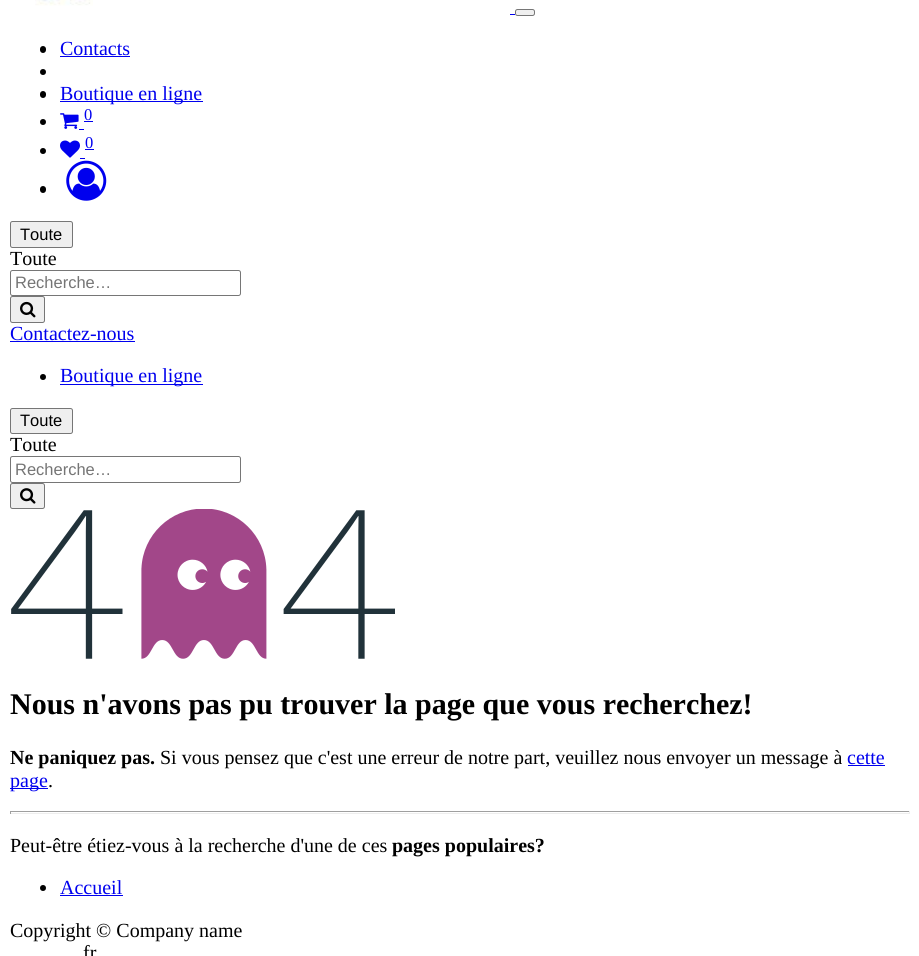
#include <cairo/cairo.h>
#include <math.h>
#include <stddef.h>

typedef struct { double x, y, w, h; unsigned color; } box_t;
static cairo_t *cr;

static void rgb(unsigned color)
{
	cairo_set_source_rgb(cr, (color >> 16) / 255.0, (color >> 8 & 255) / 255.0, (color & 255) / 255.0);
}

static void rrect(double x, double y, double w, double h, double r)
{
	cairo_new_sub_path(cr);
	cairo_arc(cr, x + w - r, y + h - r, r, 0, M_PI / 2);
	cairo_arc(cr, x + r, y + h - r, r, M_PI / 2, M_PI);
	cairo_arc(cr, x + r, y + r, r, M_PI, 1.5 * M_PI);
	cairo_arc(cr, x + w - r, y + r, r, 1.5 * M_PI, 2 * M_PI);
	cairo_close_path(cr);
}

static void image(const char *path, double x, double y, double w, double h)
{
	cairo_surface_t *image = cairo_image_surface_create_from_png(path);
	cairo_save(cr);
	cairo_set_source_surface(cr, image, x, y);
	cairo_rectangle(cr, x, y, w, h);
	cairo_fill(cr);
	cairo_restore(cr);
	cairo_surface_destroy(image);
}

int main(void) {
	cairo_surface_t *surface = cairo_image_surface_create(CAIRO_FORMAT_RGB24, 919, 956);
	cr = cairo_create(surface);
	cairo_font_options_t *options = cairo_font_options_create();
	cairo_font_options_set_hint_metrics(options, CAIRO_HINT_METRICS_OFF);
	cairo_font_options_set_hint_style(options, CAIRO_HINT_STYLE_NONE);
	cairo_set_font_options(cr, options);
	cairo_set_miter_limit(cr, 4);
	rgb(0xffffff);
	cairo_paint(cr);
	image("img/1.png", 35, 0, 58, 6);
	rgb(0x0000ee);
	cairo_rectangle(cr, 510, 14, 5, 1);
	cairo_fill(cr);
	rgb(0xefefef);
	rrect(515.5, 9.5, 19, 6, 2);
	cairo_fill_preserve(cr);
	rgb(0x767676);
	cairo_set_line_width(cr, 1);
	cairo_stroke(cr);
	rgb(0x000000);
	rrect(40, 46, 6, 7, 3);
	cairo_fill(cr);
	rgb(0x0000ee);
	cairo_rectangle(cr, 60, 56, 70, 1);
	cairo_fill(cr);
	rgb(0x000000);
	cairo_arc(cr, 43, 72, 3, 0, 2 * M_PI);
	cairo_fill(cr);
	rrect(40, 91, 6, 7, 3);
	cairo_fill(cr);
	rgb(0x0000ee);
	cairo_rectangle(cr, 60, 101, 143, 1);
	cairo_fill(cr);
	image("img/2.png", 60, 113, 19, 16);
	cairo_rectangle(cr, 84, 121, 9, 1);
	cairo_fill(cr);
	cairo_rectangle(cr, 79, 129, 5, 1);
	cairo_fill(cr);
	rgb(0x000000);
	cairo_arc(cr, 43, 122, 3, 0, 2 * M_PI);
	cairo_fill(cr);
	image("img/3.png", 60, 140, 20, 18);
	rgb(0x0000ee);
	cairo_rectangle(cr, 85, 149, 9, 1);
	cairo_fill(cr);
	cairo_rectangle(cr, 80, 158, 5, 1);
	cairo_fill(cr);
	rgb(0x000000);
	cairo_arc(cr, 43, 151, 3, 0, 2 * M_PI);
	cairo_fill(cr);
	rrect(40, 186, 6, 7, 3);
	cairo_fill(cr);
	image("img/4.png", 66, 160, 41, 41);
	rgb(0xefefef);
	rrect(10.5, 221.5, 62, 26, 2);
	cairo_fill_preserve(cr);
	rgb(0x767676);
	cairo_stroke(cr);
	rrect(10.5, 270.5, 230, 25, 2);
	cairo_stroke(cr);
	rgb(0xefefef);
	rrect(10.5, 296.5, 34, 26, 2);
	cairo_fill_preserve(cr);
	rgb(0x767676);
	cairo_stroke(cr);
	image("img/5.png", 20, 301, 16, 17);
	rgb(0x0000ee);
	cairo_rectangle(cr, 10, 341, 125, 1);
	cairo_fill(cr);
	rgb(0x000000);
	cairo_arc(cr, 43, 377, 3, 0, 2 * M_PI);
	cairo_fill(cr);
	rgb(0x0000ee);
	cairo_rectangle(cr, 60, 384, 143, 1);
	cairo_fill(cr);
	rgb(0xefefef);
	rrect(10.5, 408.5, 62, 25, 2);
	cairo_fill_preserve(cr);
	rgb(0x767676);
	cairo_stroke(cr);
	rrect(10.5, 456.5, 230, 26, 2);
	cairo_stroke(cr);
	rgb(0xefefef);
	rrect(10.5, 483.5, 34, 25, 2);
	cairo_fill_preserve(cr);
	rgb(0x767676);
	cairo_stroke(cr);
	image("img/6.png", 20, 488, 16, 16);
	image("img/7.png", 11, 509, 384, 150);
	{
		static const box_t items[] = {
			{848, 765, 37, 1, 0x0000ee},
			{10, 788, 38, 1, 0x0000ee},
			{10, 811, 900, 1, 0x9f9f9f},
			{909, 811, 1, 3, 0xeeeeee},
			{10, 813, 900, 1, 0xeeeeee},
			{10, 811, 1, 3, 0x9f9f9f},
		};
		for (size_t i = 0; i < sizeof items / sizeof *items; i++) {
			rgb(items[i].color);
			cairo_rectangle(cr, items[i].x, items[i].y, items[i].w, items[i].h);
			cairo_fill(cr);
		}
	}
	rgb(0x000000);
	cairo_arc(cr, 43, 888, 3, 0, 2 * M_PI);
	cairo_fill(cr);
	rgb(0x0000ee);
	cairo_rectangle(cr, 60, 895, 63, 1);
	cairo_fill(cr);
	cairo_select_font_face(cr, "Liberation Serif", CAIRO_FONT_SLANT_NORMAL, CAIRO_FONT_WEIGHT_NORMAL);
	cairo_set_font_size(cr, 20);
	cairo_move_to(cr, 60, 55);
	cairo_show_text(cr, "Contacts");
	cairo_move_to(cr, 60, 100);
	cairo_show_text(cr, "Boutique en ligne");
	cairo_set_font_size(cr, 16.5);
	cairo_move_to(cr, 84, 120);
	cairo_show_text(cr, "0");
	cairo_move_to(cr, 85, 148);
	cairo_show_text(cr, "0");
	cairo_select_font_face(cr, "Liberation Sans", CAIRO_FONT_SLANT_NORMAL, CAIRO_FONT_WEIGHT_NORMAL);
	rgb(0x000000);
	cairo_move_to(cr, 20, 240);
	cairo_show_text(cr, "Toute");
	cairo_select_font_face(cr, "Liberation Serif", CAIRO_FONT_SLANT_NORMAL, CAIRO_FONT_WEIGHT_NORMAL);
	cairo_set_font_size(cr, 20);
	cairo_move_to(cr, 10, 265);
	cairo_show_text(cr, "Toute");
	cairo_select_font_face(cr, "Liberation Sans", CAIRO_FONT_SLANT_NORMAL, CAIRO_FONT_WEIGHT_NORMAL);
	cairo_set_font_size(cr, 16.5);
	rgb(0x757575);
	cairo_move_to(cr, 15, 288);
	cairo_show_text(cr, "Recherche…");
	cairo_select_font_face(cr, "Liberation Serif", CAIRO_FONT_SLANT_NORMAL, CAIRO_FONT_WEIGHT_NORMAL);
	cairo_set_font_size(cr, 20);
	rgb(0x0000ee);
	cairo_move_to(cr, 10, 340);
	cairo_show_text(cr, "Contactez-nous");
	cairo_move_to(cr, 60, 382);
	cairo_show_text(cr, "Boutique en ligne");
	cairo_select_font_face(cr, "Liberation Sans", CAIRO_FONT_SLANT_NORMAL, CAIRO_FONT_WEIGHT_NORMAL);
	cairo_set_font_size(cr, 16.5);
	rgb(0x000000);
	cairo_move_to(cr, 20, 426);
	cairo_show_text(cr, "Toute");
	cairo_select_font_face(cr, "Liberation Serif", CAIRO_FONT_SLANT_NORMAL, CAIRO_FONT_WEIGHT_NORMAL);
	cairo_set_font_size(cr, 20);
	cairo_move_to(cr, 10, 451);
	cairo_show_text(cr, "Toute");
	cairo_select_font_face(cr, "Liberation Sans", CAIRO_FONT_SLANT_NORMAL, CAIRO_FONT_WEIGHT_NORMAL);
	cairo_set_font_size(cr, 16.5);
	rgb(0x757575);
	cairo_move_to(cr, 15, 475);
	cairo_show_text(cr, "Recherche…");
	cairo_select_font_face(cr, "Liberation Serif", CAIRO_FONT_SLANT_NORMAL, CAIRO_FONT_WEIGHT_BOLD);
	cairo_set_font_size(cr, 30);
	rgb(0x000000);
	cairo_move_to(cr, 10, 714);
	cairo_show_text(cr, "Nous n'avons pas pu trouver la page que vous recherchez!");
	cairo_set_font_size(cr, 20);
	cairo_move_to(cr, 10, 764);
	cairo_show_text(cr, "Ne paniquez pas.");
	cairo_select_font_face(cr, "Liberation Serif", CAIRO_FONT_SLANT_NORMAL, CAIRO_FONT_WEIGHT_NORMAL);
	cairo_move_to(cr, 160, 764);
	cairo_show_text(cr, "Si vous pensez que c'est une erreur de notre part, veuillez nous envoyer un message à");
	rgb(0x0000ee);
	cairo_move_to(cr, 847, 764);
	cairo_show_text(cr, "cette");
	cairo_move_to(cr, 10, 787);
	cairo_show_text(cr, "page");
	rgb(0x000000);
	cairo_move_to(cr, 48, 787);
	cairo_show_text(cr, ".");
	cairo_move_to(cr, 10, 852);
	cairo_show_text(cr, "Peut-être étiez-vous à la recherche d'une de ces");
	cairo_select_font_face(cr, "Liberation Serif", CAIRO_FONT_SLANT_NORMAL, CAIRO_FONT_WEIGHT_BOLD);
	cairo_move_to(cr, 392, 852);
	cairo_show_text(cr, "pages populaires?");
	cairo_select_font_face(cr, "Liberation Serif", CAIRO_FONT_SLANT_NORMAL, CAIRO_FONT_WEIGHT_NORMAL);
	rgb(0x0000ee);
	cairo_move_to(cr, 60, 894);
	cairo_show_text(cr, "Accueil");
	rgb(0x000000);
	cairo_move_to(cr, 10, 937);
	cairo_show_text(cr, "Copyright © Company name");
	cairo_move_to(cr, 83, 959);
	cairo_show_text(cr, "fr");
	cairo_surface_write_to_png(surface, "page.png");
	cairo_font_options_destroy(options);
	cairo_destroy(cr);
	cairo_surface_destroy(surface);
	return 0;
}
